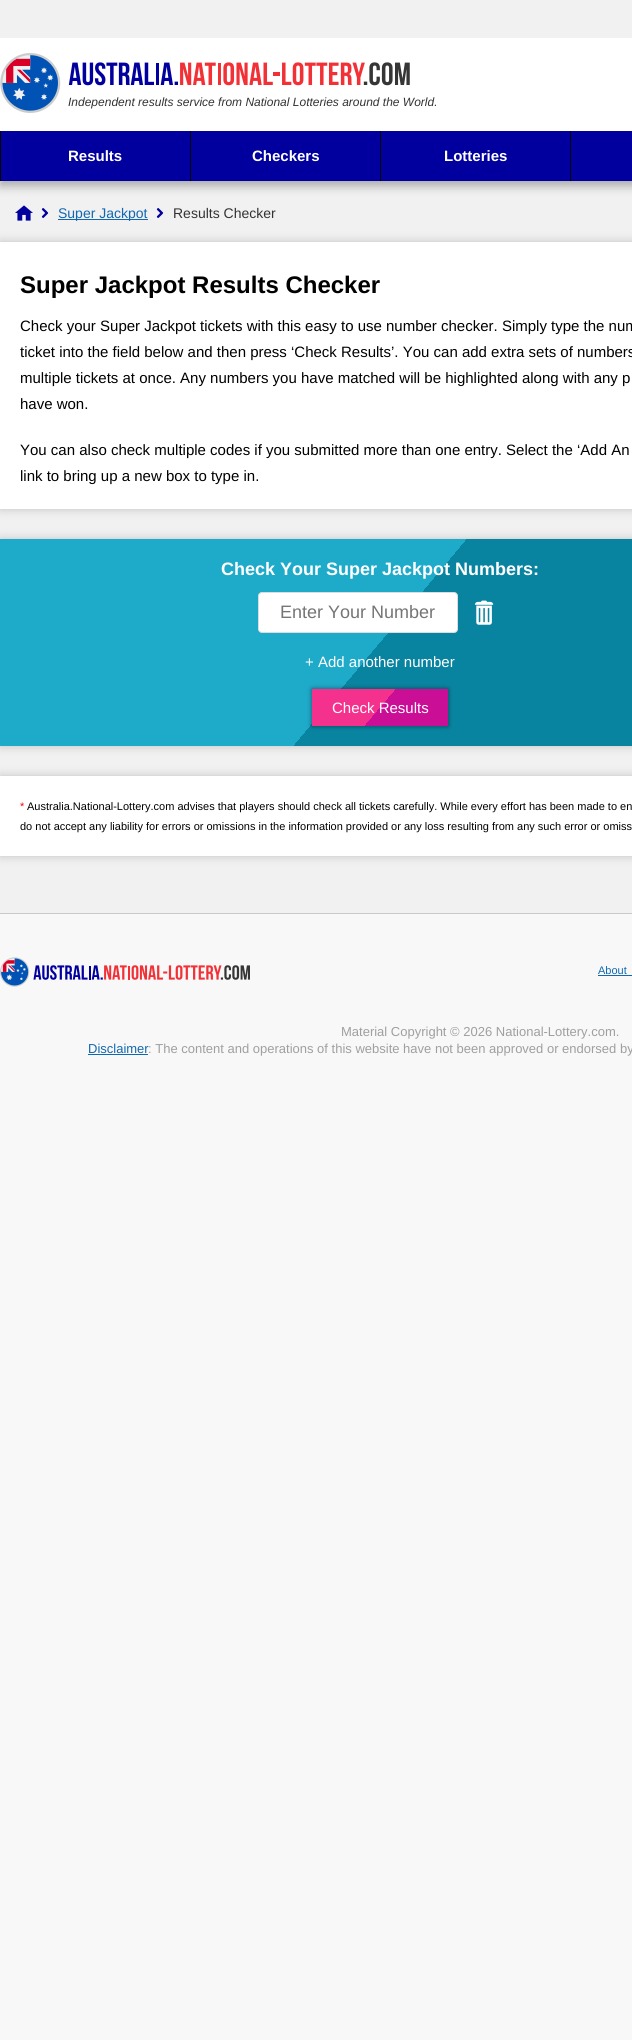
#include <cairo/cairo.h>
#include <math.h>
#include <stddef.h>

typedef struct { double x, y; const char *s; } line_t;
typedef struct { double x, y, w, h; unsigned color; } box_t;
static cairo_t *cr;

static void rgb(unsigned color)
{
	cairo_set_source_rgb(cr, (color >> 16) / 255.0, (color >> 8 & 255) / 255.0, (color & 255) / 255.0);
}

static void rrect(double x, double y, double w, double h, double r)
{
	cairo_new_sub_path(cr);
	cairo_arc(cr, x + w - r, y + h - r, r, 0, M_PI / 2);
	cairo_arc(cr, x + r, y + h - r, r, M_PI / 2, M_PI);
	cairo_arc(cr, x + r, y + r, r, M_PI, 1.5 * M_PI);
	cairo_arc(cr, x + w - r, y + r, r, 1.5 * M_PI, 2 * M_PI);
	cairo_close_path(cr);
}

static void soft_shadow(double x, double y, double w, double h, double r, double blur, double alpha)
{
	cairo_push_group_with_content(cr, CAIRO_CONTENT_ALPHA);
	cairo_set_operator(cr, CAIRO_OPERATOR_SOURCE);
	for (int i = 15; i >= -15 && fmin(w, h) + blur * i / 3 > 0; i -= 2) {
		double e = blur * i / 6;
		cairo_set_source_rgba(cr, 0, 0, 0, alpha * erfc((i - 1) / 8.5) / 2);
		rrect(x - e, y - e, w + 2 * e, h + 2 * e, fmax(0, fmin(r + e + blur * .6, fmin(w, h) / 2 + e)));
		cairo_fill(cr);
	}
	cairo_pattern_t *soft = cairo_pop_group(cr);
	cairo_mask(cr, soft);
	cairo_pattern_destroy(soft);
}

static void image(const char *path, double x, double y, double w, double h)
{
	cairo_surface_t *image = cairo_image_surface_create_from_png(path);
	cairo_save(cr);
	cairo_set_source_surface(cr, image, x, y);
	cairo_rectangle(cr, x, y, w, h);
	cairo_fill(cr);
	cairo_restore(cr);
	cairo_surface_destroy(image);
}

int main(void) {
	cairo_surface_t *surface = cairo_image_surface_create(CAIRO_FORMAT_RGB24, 632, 2040);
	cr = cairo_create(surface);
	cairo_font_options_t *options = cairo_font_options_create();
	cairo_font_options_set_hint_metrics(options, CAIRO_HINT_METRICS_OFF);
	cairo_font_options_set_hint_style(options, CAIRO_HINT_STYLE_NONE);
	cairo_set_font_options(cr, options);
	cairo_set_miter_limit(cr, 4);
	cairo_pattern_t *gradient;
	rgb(0xf8f8f8);
	cairo_paint(cr);
	rgb(0xf1f1f1);
	cairo_rectangle(cr, 0, 181, 632, 732);
	cairo_fill(cr);
	rgb(0x000000);
	soft_shadow(0, 5, 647, 181, 0, 5, 0.3);
	rgb(0xffffff);
	cairo_rectangle(cr, 0, 38, 632, 93);
	cairo_fill(cr);
	rgb(0xf1f1f1);
	cairo_rectangle(cr, 0, 0, 632, 38);
	cairo_fill(cr);
	image("img/1.png", 0, 53, 410, 60);
	{
		static const box_t items[] = {
			{1, 131, 631, 50, 0x01009e},
			{0, 131, 1, 50, 0x000000},
			{190, 131, 1, 50, 0x000000},
			{380, 131, 1, 50, 0x000000},
			{570, 131, 1, 50, 0x000000},
		};
		for (size_t i = 0; i < sizeof items / sizeof *items; i++) {
			rgb(items[i].color);
			cairo_rectangle(cr, items[i].x, items[i].y, items[i].w, items[i].h);
			cairo_fill(cr);
		}
	}
	image("img/2.png", 15, 205, 18, 16);
	image("img/3.png", 41, 208, 8, 10);
	rgb(0x1268af);
	cairo_rectangle(cr, 58, 219, 90, 1);
	cairo_fill(cr);
	image("img/3.png", 156, 208, 8, 10);
	rgb(0x000000);
	soft_shadow(0, 242, 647, 267, 0, 5, 0.2);
	rgb(0xffffff);
	cairo_rectangle(cr, 0, 242, 632, 267);
	cairo_fill(cr);
	rgb(0x000000);
	soft_shadow(0, 539, 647, 207, 0, 5, 0.2);
	gradient = cairo_pattern_create_linear(106, 413, 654, 872);
	cairo_pattern_add_color_stop_rgba(gradient, 0, 0.118, 0.667, 0.788, 1);
	cairo_pattern_add_color_stop_rgba(gradient, 0.5, 0.118, 0.667, 0.788, 1);
	cairo_pattern_add_color_stop_rgba(gradient, 0.5, 0.035, 0.518, 0.627, 1);
	cairo_pattern_add_color_stop_rgba(gradient, 1, 0.035, 0.518, 0.627, 1);
	cairo_set_source(cr, gradient);
	cairo_pattern_destroy(gradient);
	cairo_rectangle(cr, 0, 539, 632, 207);
	cairo_fill(cr);
	rgb(0xffffff);
	rrect(258.5, 592.5, 199, 40, 3.5);
	cairo_fill_preserve(cr);
	rgb(0xdddddd);
	cairo_set_line_width(cr, 1);
	cairo_stroke(cr);
	image("img/4.png", 474, 600, 20, 25);
	rgb(0x000000);
	soft_shadow(312, 689, 136, 37, 0, 2.5, 0.5);
	gradient = cairo_pattern_create_linear(331, 666, 429, 749);
	cairo_pattern_add_color_stop_rgba(gradient, 0, 0.957, 0.192, 0.553, 1);
	cairo_pattern_add_color_stop_rgba(gradient, 0.5, 0.957, 0.192, 0.553, 1);
	cairo_pattern_add_color_stop_rgba(gradient, 0.5, 0.792, 0.055, 0.588, 1);
	cairo_pattern_add_color_stop_rgba(gradient, 1, 0.792, 0.055, 0.588, 1);
	cairo_set_source(cr, gradient);
	cairo_pattern_destroy(gradient);
	cairo_rectangle(cr, 312, 689, 136, 37);
	cairo_fill(cr);
	rgb(0x000000);
	soft_shadow(0, 776, 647, 80, 0, 5, 0.2);
	rgb(0xffffff);
	cairo_rectangle(cr, 0, 776, 632, 80);
	cairo_fill(cr);
	rgb(0xcacaca);
	cairo_rectangle(cr, 0, 913, 632, 1);
	cairo_fill(cr);
	image("img/5.png", 0, 957, 250, 30);
	rgb(0x1268af);
	cairo_rectangle(cr, 598, 975, 34, 1);
	cairo_fill(cr);
	cairo_rectangle(cr, 88, 1054, 60, 1);
	cairo_fill(cr);
	cairo_select_font_face(cr, "Liberation Sans", CAIRO_FONT_SLANT_ITALIC, CAIRO_FONT_WEIGHT_NORMAL);
	cairo_set_font_size(cr, 12);
	rgb(0x333333);
	cairo_move_to(cr, 68, 106);
	cairo_show_text(cr, "Independent results service from National Lotteries around the World.");
	cairo_select_font_face(cr, "Liberation Sans", CAIRO_FONT_SLANT_NORMAL, CAIRO_FONT_WEIGHT_BOLD);
	cairo_set_font_size(cr, 15);
	rgb(0xffffff);
	{
		static const line_t items[] = {
			{68, 161, "Results"},
			{252, 161, "Checkers"},
			{444, 161, "Lotteries"},
		};
		for (size_t i = 0; i < sizeof items / sizeof *items; i++) {
			cairo_move_to(cr, items[i].x, items[i].y);
			cairo_show_text(cr, items[i].s);
		}
	}
	cairo_select_font_face(cr, "Liberation Sans", CAIRO_FONT_SLANT_NORMAL, CAIRO_FONT_WEIGHT_NORMAL);
	cairo_set_font_size(cr, 14);
	rgb(0x1268af);
	cairo_move_to(cr, 58, 218);
	cairo_show_text(cr, "Super Jackpot");
	rgb(0x333333);
	cairo_move_to(cr, 173, 218);
	cairo_show_text(cr, "Results Checker");
	cairo_select_font_face(cr, "Liberation Sans", CAIRO_FONT_SLANT_NORMAL, CAIRO_FONT_WEIGHT_BOLD);
	cairo_set_font_size(cr, 24);
	rgb(0x000000);
	cairo_move_to(cr, 20, 293);
	cairo_show_text(cr, "Super Jackpot Results Checker");
	cairo_select_font_face(cr, "Liberation Sans", CAIRO_FONT_SLANT_NORMAL, CAIRO_FONT_WEIGHT_NORMAL);
	cairo_set_font_size(cr, 15);
	{
		static const line_t items[] = {
			{20, 331, "Check your Super Jackpot tickets with this easy to use number checker. Simply type the num"},
			{20, 357, "ticket into the field below and then press ‘Check Results’. You can add extra sets of numbers"},
			{20, 383, "multiple tickets at once. Any numbers you have matched will be highlighted along with any p"},
			{20, 409, "have won."},
			{20, 455, "You can also check multiple codes if you submitted more than one entry. Select the ‘Add An"},
			{20, 481, "link to bring up a new box to type in."},
		};
		for (size_t i = 0; i < sizeof items / sizeof *items; i++) {
			cairo_move_to(cr, items[i].x, items[i].y);
			cairo_show_text(cr, items[i].s);
		}
	}
	cairo_select_font_face(cr, "Liberation Sans", CAIRO_FONT_SLANT_NORMAL, CAIRO_FONT_WEIGHT_BOLD);
	cairo_set_font_size(cr, 18);
	rgb(0xffffff);
	cairo_move_to(cr, 221, 575);
	cairo_show_text(cr, "Check Your Super Jackpot Numbers:");
	cairo_select_font_face(cr, "Liberation Sans", CAIRO_FONT_SLANT_NORMAL, CAIRO_FONT_WEIGHT_NORMAL);
	rgb(0x757575);
	cairo_move_to(cr, 280, 618);
	cairo_show_text(cr, "Enter Your Number");
	cairo_set_font_size(cr, 15);
	rgb(0xffffff);
	cairo_move_to(cr, 305, 667);
	cairo_show_text(cr, "+ Add another number");
	cairo_move_to(cr, 332, 713);
	cairo_show_text(cr, "Check Results");
	cairo_set_font_size(cr, 11);
	rgb(0xff0000);
	cairo_move_to(cr, 20, 810);
	cairo_show_text(cr, "*");
	rgb(0x000000);
	cairo_move_to(cr, 27, 810);
	cairo_show_text(cr, "Australia.National-Lottery.com advises that players should check all tickets carefully. While every effort has been made to en");
	cairo_move_to(cr, 20, 830);
	cairo_show_text(cr, "do not accept any liability for errors or omissions in the information provided or any loss resulting from any such error or omiss");
	rgb(0x1268af);
	cairo_move_to(cr, 598, 974);
	cairo_show_text(cr, "About");
	cairo_set_font_size(cr, 13);
	rgb(0x9f9f9f);
	cairo_move_to(cr, 341, 1036);
	cairo_show_text(cr, "Material Copyright © 2026 National-Lottery.com.");
	rgb(0x1268af);
	cairo_move_to(cr, 88, 1053);
	cairo_show_text(cr, "Disclaimer");
	rgb(0x9f9f9f);
	cairo_move_to(cr, 148, 1053);
	cairo_show_text(cr, ": The content and operations of this website have not been approved or endorsed by");
	cairo_surface_write_to_png(surface, "page.png");
	cairo_font_options_destroy(options);
	cairo_destroy(cr);
	cairo_surface_destroy(surface);
	return 0;
}
